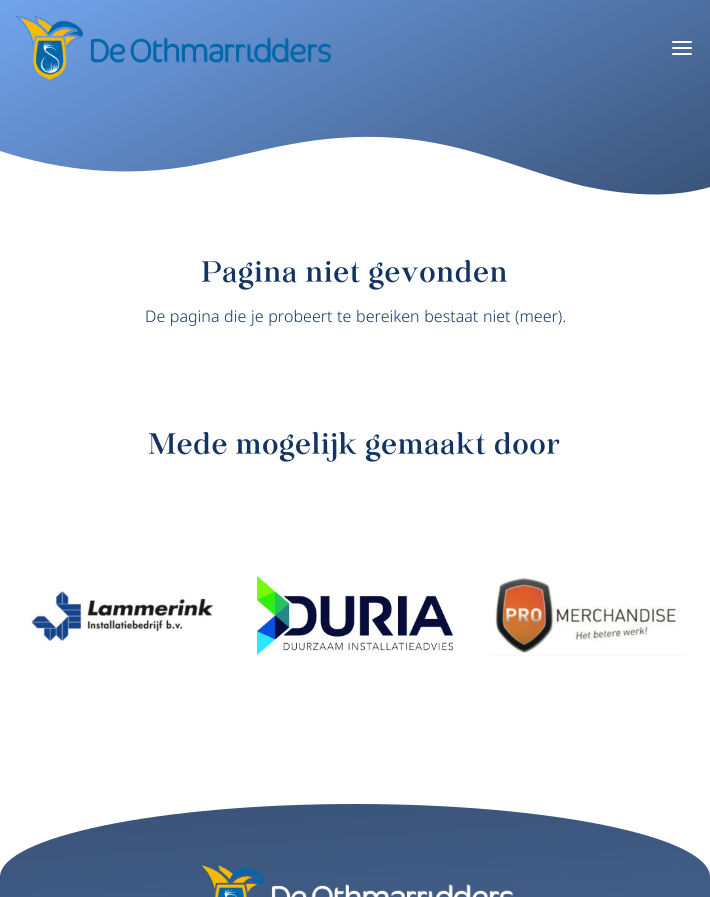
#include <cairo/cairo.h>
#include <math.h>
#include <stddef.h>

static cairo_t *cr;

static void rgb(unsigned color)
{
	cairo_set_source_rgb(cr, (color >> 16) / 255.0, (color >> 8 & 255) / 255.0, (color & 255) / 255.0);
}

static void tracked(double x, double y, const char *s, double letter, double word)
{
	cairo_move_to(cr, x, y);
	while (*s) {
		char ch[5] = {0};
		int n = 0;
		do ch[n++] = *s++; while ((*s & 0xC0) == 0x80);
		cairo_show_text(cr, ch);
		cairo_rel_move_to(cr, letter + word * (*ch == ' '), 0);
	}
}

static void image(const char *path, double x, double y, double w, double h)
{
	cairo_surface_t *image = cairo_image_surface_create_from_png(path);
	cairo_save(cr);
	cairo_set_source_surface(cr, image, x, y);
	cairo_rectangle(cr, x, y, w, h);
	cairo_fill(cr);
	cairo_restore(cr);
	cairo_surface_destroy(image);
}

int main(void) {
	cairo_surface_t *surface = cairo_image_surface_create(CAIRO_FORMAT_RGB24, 710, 897);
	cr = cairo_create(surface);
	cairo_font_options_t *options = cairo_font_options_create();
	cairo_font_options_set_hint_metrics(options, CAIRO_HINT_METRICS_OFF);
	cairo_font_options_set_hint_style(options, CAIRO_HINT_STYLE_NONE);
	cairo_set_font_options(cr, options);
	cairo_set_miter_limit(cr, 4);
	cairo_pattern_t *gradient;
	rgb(0xffffff);
	cairo_paint(cr);
	gradient = cairo_pattern_create_linear(241, -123, 469, 323);
	cairo_pattern_add_color_stop_rgba(gradient, 0, 0.447, 0.643, 0.929, 1);
	cairo_pattern_add_color_stop_rgba(gradient, 1, 0.224, 0.322, 0.467, 1);
	cairo_set_source(cr, gradient);
	cairo_pattern_destroy(gradient);
	cairo_rectangle(cr, 0, 0, 710, 195);
	cairo_fill(cr);
	image("img/1.png", 16, 16, 315, 64);
	cairo_new_path(cr);
	cairo_move_to(cr, 673, 48);
	cairo_line_to(cr, 691, 48);
	cairo_move_to(cr, 673, 42);
	cairo_line_to(cr, 691, 42);
	cairo_move_to(cr, 673, 54);
	cairo_line_to(cr, 691, 54);
	rgb(0xffffff);
	cairo_set_line_cap(cr, CAIRO_LINE_CAP_ROUND);
	cairo_set_line_join(cr, CAIRO_LINE_JOIN_ROUND);
	cairo_stroke(cr);
	cairo_new_path(cr);
	cairo_move_to(cr, 583, 186);
	cairo_curve_to(cr, 536, 174, 487, 153, 440, 144);
	cairo_curve_to(cr, 391, 134, 341, 135, 292, 144);
	cairo_curve_to(cr, 258, 150, 224, 160, 190, 166);
	cairo_curve_to(cr, 126, 177, 61, 171, 0, 151);
	cairo_line_to(cr, 0, 200);
	cairo_line_to(cr, 710, 200);
	cairo_line_to(cr, 710, 187);
	cairo_curve_to(cr, 670, 199, 625, 195, 583, 186);
	cairo_close_path(cr);
	cairo_fill(cr);
	image("img/2.png", 201, 259, 306, 31);
	image("img/3.png", 148, 431, 412, 31);
	image("img/4.png", 29, 591, 185, 52);
	image("img/5.png", 257, 576, 196, 79);
	image("img/6.png", 489, 577, 197, 79);
	gradient = cairo_pattern_create_linear(392, 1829, 318, 777);
	cairo_pattern_add_color_stop_rgba(gradient, 0, 0.447, 0.643, 0.929, 1);
	cairo_pattern_add_color_stop_rgba(gradient, 1, 0.224, 0.322, 0.467, 1);
	cairo_set_source(cr, gradient);
	cairo_pattern_destroy(gradient);
	cairo_rectangle(cr, 0, 804, 710, 93);
	cairo_fill(cr);
	rgb(0xffffff);
	cairo_new_path(cr);
	cairo_move_to(cr, 355, 804);
	cairo_curve_to(cr, 551, 804, 710, 837, 710, 877);
	cairo_line_to(cr, 710, 799);
	cairo_line_to(cr, 0, 799);
	cairo_line_to(cr, 0, 877);
	cairo_curve_to(cr, 0, 837, 159, 804, 355, 804);
	cairo_close_path(cr);
	cairo_fill(cr);
	image("img/7.png", 197, 863, 316, 34);
	cairo_select_font_face(cr, "Noto Sans Light", CAIRO_FONT_SLANT_NORMAL, CAIRO_FONT_WEIGHT_NORMAL);
	cairo_set_font_size(cr, 16);
	rgb(0x133462);
	tracked(145, 322, "De pagina die je probeert te bereiken bestaat niet (meer).", 0, 0.5);
	cairo_surface_write_to_png(surface, "page.png");
	cairo_font_options_destroy(options);
	cairo_destroy(cr);
	cairo_surface_destroy(surface);
	return 0;
}
